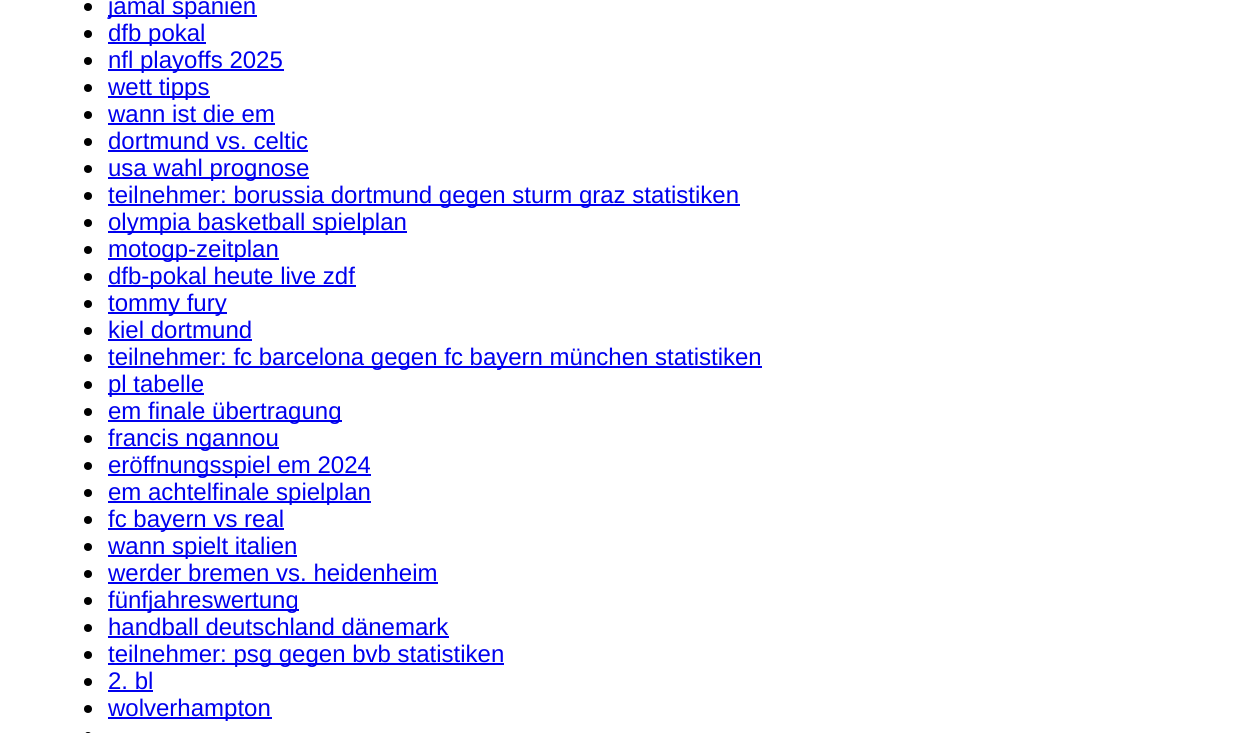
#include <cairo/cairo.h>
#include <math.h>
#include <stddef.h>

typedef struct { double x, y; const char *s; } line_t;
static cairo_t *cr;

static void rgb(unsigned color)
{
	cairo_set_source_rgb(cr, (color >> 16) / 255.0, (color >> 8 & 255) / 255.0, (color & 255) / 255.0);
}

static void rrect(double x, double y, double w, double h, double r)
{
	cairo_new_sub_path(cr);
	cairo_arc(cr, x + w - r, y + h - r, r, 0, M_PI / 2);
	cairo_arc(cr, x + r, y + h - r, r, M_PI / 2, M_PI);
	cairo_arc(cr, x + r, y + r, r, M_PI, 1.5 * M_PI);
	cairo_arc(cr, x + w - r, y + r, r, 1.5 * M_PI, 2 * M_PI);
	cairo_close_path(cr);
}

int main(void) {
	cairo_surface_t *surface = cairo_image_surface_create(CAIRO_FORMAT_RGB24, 1233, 733);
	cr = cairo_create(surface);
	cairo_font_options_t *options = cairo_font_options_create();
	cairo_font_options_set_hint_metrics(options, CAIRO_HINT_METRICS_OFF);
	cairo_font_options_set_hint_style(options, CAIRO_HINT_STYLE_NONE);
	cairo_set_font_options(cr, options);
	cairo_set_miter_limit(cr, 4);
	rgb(0xffffff);
	cairo_paint(cr);
	rgb(0x000000);
	cairo_arc(cr, 88, 7, 4, 0, 2 * M_PI);
	cairo_fill(cr);
	rgb(0x0000ee);
	cairo_rectangle(cr, 108, 15, 149, 2);
	cairo_fill(cr);
	rgb(0x000000);
	cairo_arc(cr, 88, 34, 4, 0, 2 * M_PI);
	cairo_fill(cr);
	rgb(0x0000ee);
	cairo_rectangle(cr, 108, 42, 98, 2);
	cairo_fill(cr);
	rgb(0x000000);
	cairo_arc(cr, 88, 61, 4, 0, 2 * M_PI);
	cairo_fill(cr);
	rgb(0x0000ee);
	cairo_rectangle(cr, 108, 69, 176, 2);
	cairo_fill(cr);
	rgb(0x000000);
	cairo_arc(cr, 88, 88, 4, 0, 2 * M_PI);
	cairo_fill(cr);
	rgb(0x0000ee);
	cairo_rectangle(cr, 108, 96, 102, 2);
	cairo_fill(cr);
	rgb(0x000000);
	cairo_arc(cr, 88, 115, 4, 0, 2 * M_PI);
	cairo_fill(cr);
	rgb(0x0000ee);
	cairo_rectangle(cr, 108, 123, 167, 2);
	cairo_fill(cr);
	rgb(0x000000);
	cairo_arc(cr, 88, 142, 4, 0, 2 * M_PI);
	cairo_fill(cr);
	rgb(0x0000ee);
	cairo_rectangle(cr, 108, 150, 200, 2);
	cairo_fill(cr);
	rgb(0x000000);
	cairo_arc(cr, 88, 169, 4, 0, 2 * M_PI);
	cairo_fill(cr);
	rgb(0x0000ee);
	cairo_rectangle(cr, 108, 177, 201, 2);
	cairo_fill(cr);
	rgb(0x000000);
	cairo_arc(cr, 88, 196, 4, 0, 2 * M_PI);
	cairo_fill(cr);
	rgb(0x0000ee);
	cairo_rectangle(cr, 108, 204, 632, 2);
	cairo_fill(cr);
	rgb(0x000000);
	cairo_arc(cr, 88, 223, 4, 0, 2 * M_PI);
	cairo_fill(cr);
	rgb(0x0000ee);
	cairo_rectangle(cr, 108, 231, 299, 2);
	cairo_fill(cr);
	rgb(0x000000);
	cairo_arc(cr, 88, 250, 4, 0, 2 * M_PI);
	cairo_fill(cr);
	rgb(0x0000ee);
	cairo_rectangle(cr, 108, 258, 171, 2);
	cairo_fill(cr);
	rgb(0x000000);
	cairo_arc(cr, 88, 277, 4, 0, 2 * M_PI);
	cairo_fill(cr);
	rgb(0x0000ee);
	cairo_rectangle(cr, 108, 285, 248, 2);
	cairo_fill(cr);
	rgb(0x000000);
	cairo_arc(cr, 88, 304, 4, 0, 2 * M_PI);
	cairo_fill(cr);
	rgb(0x0000ee);
	cairo_rectangle(cr, 108, 312, 119, 2);
	cairo_fill(cr);
	rgb(0x000000);
	cairo_arc(cr, 88, 331, 4, 0, 2 * M_PI);
	cairo_fill(cr);
	rgb(0x0000ee);
	cairo_rectangle(cr, 108, 339, 144, 2);
	cairo_fill(cr);
	rgb(0x000000);
	cairo_arc(cr, 88, 358, 4, 0, 2 * M_PI);
	cairo_fill(cr);
	rgb(0x0000ee);
	cairo_rectangle(cr, 108, 366, 654, 2);
	cairo_fill(cr);
	rgb(0x000000);
	cairo_arc(cr, 88, 385, 4, 0, 2 * M_PI);
	cairo_fill(cr);
	rgb(0x0000ee);
	cairo_rectangle(cr, 108, 393, 96, 2);
	cairo_fill(cr);
	rgb(0x000000);
	cairo_arc(cr, 88, 412, 4, 0, 2 * M_PI);
	cairo_fill(cr);
	rgb(0x0000ee);
	cairo_rectangle(cr, 108, 420, 234, 2);
	cairo_fill(cr);
	rgb(0x000000);
	cairo_arc(cr, 88, 439, 4, 0, 2 * M_PI);
	cairo_fill(cr);
	rgb(0x0000ee);
	cairo_rectangle(cr, 108, 447, 171, 2);
	cairo_fill(cr);
	rgb(0x000000);
	cairo_arc(cr, 88, 466, 4, 0, 2 * M_PI);
	cairo_fill(cr);
	rgb(0x0000ee);
	cairo_rectangle(cr, 108, 474, 263, 2);
	cairo_fill(cr);
	rgb(0x000000);
	cairo_arc(cr, 88, 493, 4, 0, 2 * M_PI);
	cairo_fill(cr);
	rgb(0x0000ee);
	cairo_rectangle(cr, 108, 501, 263, 2);
	cairo_fill(cr);
	rgb(0x000000);
	cairo_arc(cr, 88, 520, 4, 0, 2 * M_PI);
	cairo_fill(cr);
	rgb(0x0000ee);
	cairo_rectangle(cr, 108, 528, 176, 2);
	cairo_fill(cr);
	rgb(0x000000);
	cairo_arc(cr, 88, 547, 4, 0, 2 * M_PI);
	cairo_fill(cr);
	rgb(0x0000ee);
	cairo_rectangle(cr, 108, 555, 189, 2);
	cairo_fill(cr);
	rgb(0x000000);
	cairo_arc(cr, 88, 574, 4, 0, 2 * M_PI);
	cairo_fill(cr);
	rgb(0x0000ee);
	cairo_rectangle(cr, 108, 582, 330, 2);
	cairo_fill(cr);
	rgb(0x000000);
	cairo_arc(cr, 88, 601, 4, 0, 2 * M_PI);
	cairo_fill(cr);
	rgb(0x0000ee);
	cairo_rectangle(cr, 108, 609, 191, 2);
	cairo_fill(cr);
	rgb(0x000000);
	cairo_arc(cr, 88, 628, 4, 0, 2 * M_PI);
	cairo_fill(cr);
	rgb(0x0000ee);
	cairo_rectangle(cr, 108, 636, 341, 2);
	cairo_fill(cr);
	rgb(0x000000);
	cairo_arc(cr, 88, 655, 4, 0, 2 * M_PI);
	cairo_fill(cr);
	rgb(0x0000ee);
	cairo_rectangle(cr, 108, 663, 396, 2);
	cairo_fill(cr);
	rgb(0x000000);
	cairo_arc(cr, 88, 682, 4, 0, 2 * M_PI);
	cairo_fill(cr);
	rgb(0x0000ee);
	cairo_rectangle(cr, 108, 690, 45, 2);
	cairo_fill(cr);
	rgb(0x000000);
	cairo_arc(cr, 88, 709, 4, 0, 2 * M_PI);
	cairo_fill(cr);
	rgb(0x0000ee);
	cairo_rectangle(cr, 108, 717, 164, 2);
	cairo_fill(cr);
	rgb(0x000000);
	rrect(84, 732, 8, 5, 4);
	cairo_fill(cr);
	cairo_select_font_face(cr, "Liberation Sans", CAIRO_FONT_SLANT_NORMAL, CAIRO_FONT_WEIGHT_NORMAL);
	cairo_set_font_size(cr, 24);
	rgb(0x0000ee);
	{
		static const line_t items[] = {
			{108, 14, "jamal spanien"},
			{108, 41, "dfb pokal"},
			{108, 68, "nfl playoffs 2025"},
			{108, 95, "wett tipps"},
			{108, 122, "wann ist die em"},
			{108, 149, "dortmund vs. celtic"},
			{108, 176, "usa wahl prognose"},
			{108, 203, "teilnehmer: borussia dortmund gegen sturm graz statistiken"},
			{108, 230, "olympia basketball spielplan"},
			{108, 257, "motogp-zeitplan"},
			{108, 284, "dfb-pokal heute live zdf"},
			{108, 311, "tommy fury"},
			{108, 338, "kiel dortmund"},
			{108, 365, "teilnehmer: fc barcelona gegen fc bayern münchen statistiken"},
			{108, 392, "pl tabelle"},
			{108, 419, "em finale übertragung"},
			{108, 446, "francis ngannou"},
			{108, 473, "eröffnungsspiel em 2024"},
			{108, 500, "em achtelfinale spielplan"},
			{108, 527, "fc bayern vs real"},
			{108, 554, "wann spielt italien"},
			{108, 581, "werder bremen vs. heidenheim"},
			{108, 608, "fünfjahreswertung"},
			{108, 635, "handball deutschland dänemark"},
			{108, 662, "teilnehmer: psg gegen bvb statistiken"},
			{108, 689, "2. bl"},
			{108, 716, "wolverhampton"},
		};
		for (size_t i = 0; i < sizeof items / sizeof *items; i++) {
			cairo_move_to(cr, items[i].x, items[i].y);
			cairo_show_text(cr, items[i].s);
		}
	}
	cairo_surface_write_to_png(surface, "page.png");
	cairo_font_options_destroy(options);
	cairo_destroy(cr);
	cairo_surface_destroy(surface);
	return 0;
}
